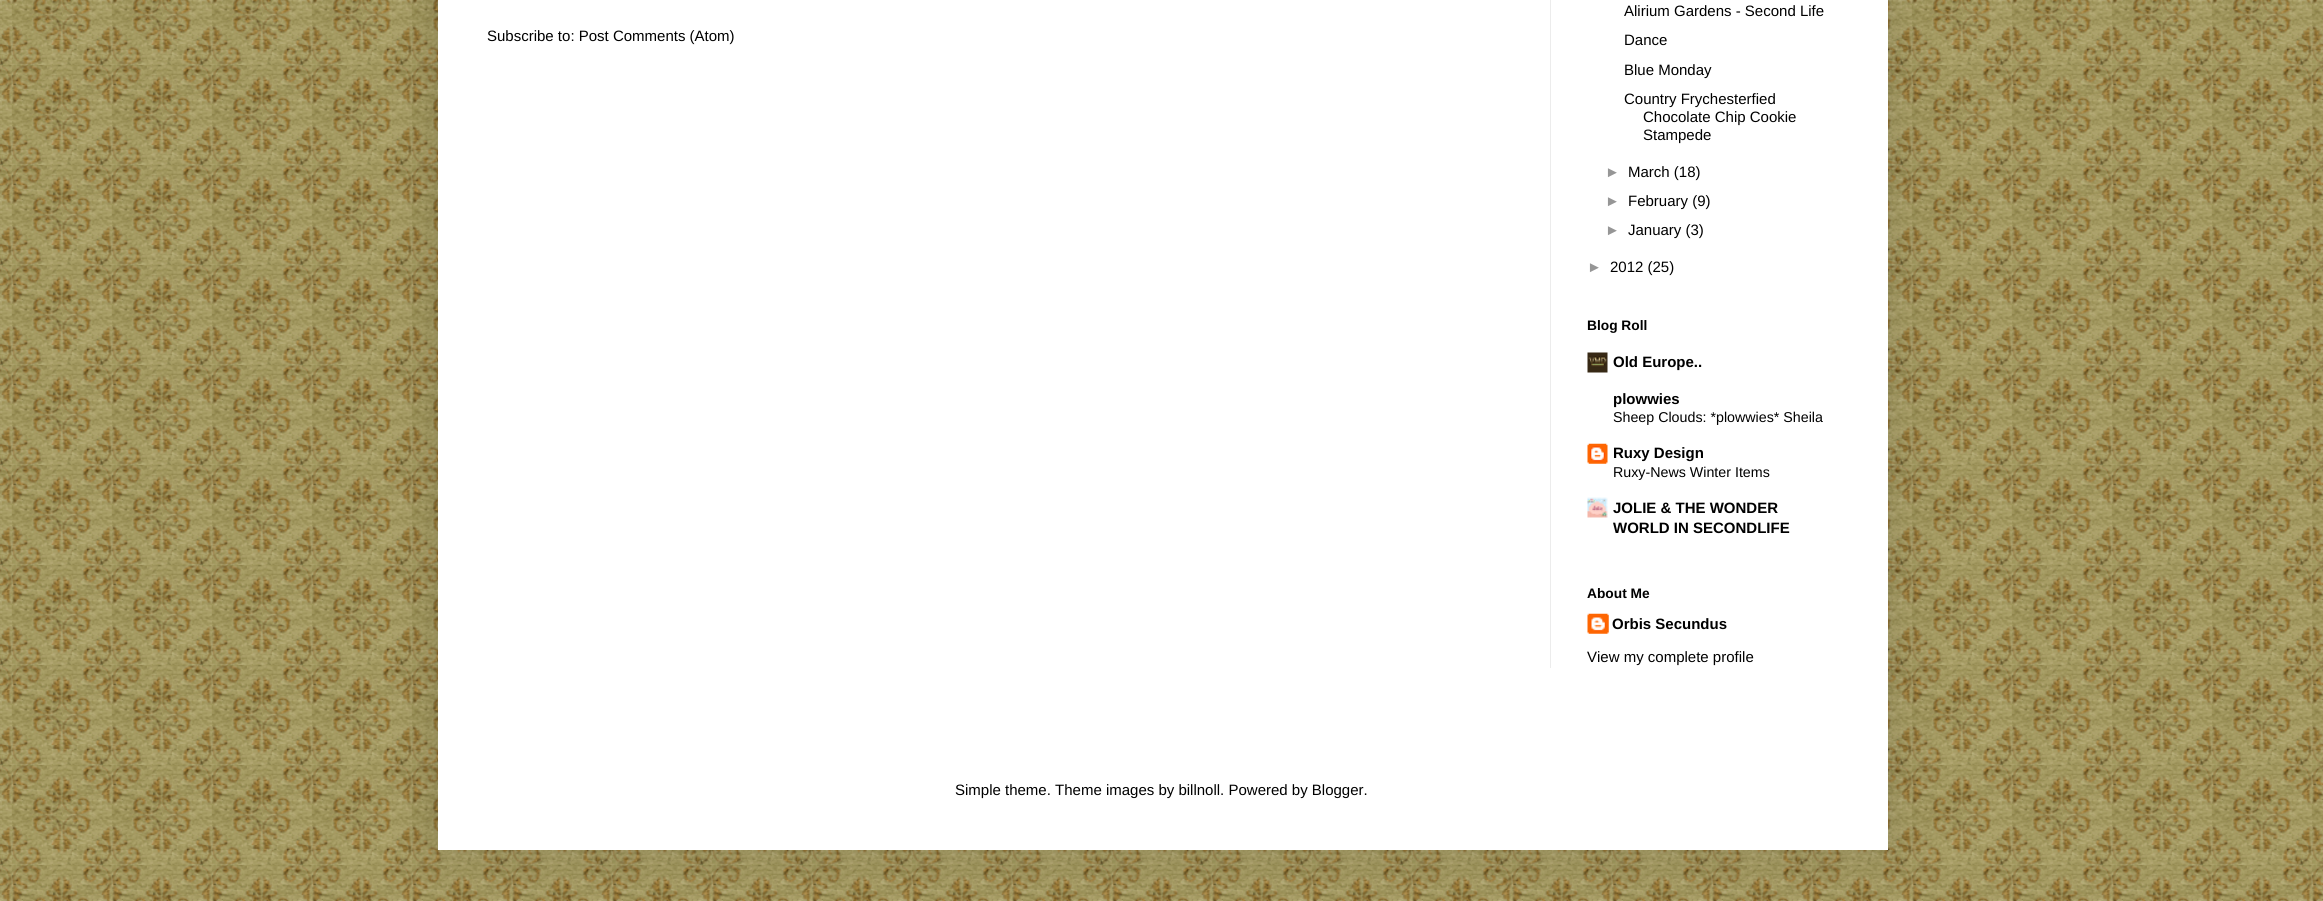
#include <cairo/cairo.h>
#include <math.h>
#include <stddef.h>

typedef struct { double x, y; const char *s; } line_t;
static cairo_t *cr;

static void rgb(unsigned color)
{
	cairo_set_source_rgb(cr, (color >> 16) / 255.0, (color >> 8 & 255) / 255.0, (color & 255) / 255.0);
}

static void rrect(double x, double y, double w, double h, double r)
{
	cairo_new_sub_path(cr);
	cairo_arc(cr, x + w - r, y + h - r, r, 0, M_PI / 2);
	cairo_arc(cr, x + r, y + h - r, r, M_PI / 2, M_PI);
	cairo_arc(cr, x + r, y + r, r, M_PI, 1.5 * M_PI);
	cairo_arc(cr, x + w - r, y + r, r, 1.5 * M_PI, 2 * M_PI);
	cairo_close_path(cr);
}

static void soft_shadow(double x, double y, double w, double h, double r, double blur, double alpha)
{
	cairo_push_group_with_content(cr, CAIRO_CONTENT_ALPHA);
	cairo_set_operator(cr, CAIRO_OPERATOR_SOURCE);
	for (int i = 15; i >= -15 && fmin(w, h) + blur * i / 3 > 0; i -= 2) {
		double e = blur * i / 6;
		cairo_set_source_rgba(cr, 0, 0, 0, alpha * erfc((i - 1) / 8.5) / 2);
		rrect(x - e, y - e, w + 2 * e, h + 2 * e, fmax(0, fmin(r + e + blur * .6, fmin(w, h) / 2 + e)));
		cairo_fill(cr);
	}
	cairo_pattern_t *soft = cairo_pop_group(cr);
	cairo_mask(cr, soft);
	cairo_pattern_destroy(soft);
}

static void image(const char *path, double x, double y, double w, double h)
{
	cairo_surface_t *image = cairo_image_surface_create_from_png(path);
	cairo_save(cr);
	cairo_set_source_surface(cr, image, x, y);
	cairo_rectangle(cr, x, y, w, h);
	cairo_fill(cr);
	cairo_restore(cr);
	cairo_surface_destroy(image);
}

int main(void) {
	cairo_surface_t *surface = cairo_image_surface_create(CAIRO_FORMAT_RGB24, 2323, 901);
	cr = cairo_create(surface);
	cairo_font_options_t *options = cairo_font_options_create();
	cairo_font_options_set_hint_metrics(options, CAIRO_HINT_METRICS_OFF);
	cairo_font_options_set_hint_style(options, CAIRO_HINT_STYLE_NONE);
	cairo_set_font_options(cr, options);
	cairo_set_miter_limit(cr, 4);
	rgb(0xffffff);
	cairo_paint(cr);
	image("img/1.png", 0, 0, 2323, 901);
	rgb(0x000000);
	soft_shadow(438, -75, 1450, 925, 0, 25, 0.15);
	rgb(0xffffff);
	cairo_rectangle(cr, 438, 0, 1450, 850);
	cairo_fill(cr);
	rgb(0xececec);
	cairo_rectangle(cr, 1550, 0, 1, 668);
	cairo_fill(cr);
	image("img/2.png", 1587, 352, 21, 21);
	image("img/3.png", 1587, 443, 21, 21);
	image("img/4.png", 1587, 497, 21, 21);
	image("img/5.png", 1587, 613, 22, 21);
	cairo_select_font_face(cr, "Liberation Sans", CAIRO_FONT_SLANT_NORMAL, CAIRO_FONT_WEIGHT_NORMAL);
	cairo_set_font_size(cr, 15);
	rgb(0x000000);
	{
		static const line_t items[] = {
			{487, 41, "Subscribe to: Post Comments (Atom)"},
			{1624, 16, "Alirium Gardens - Second Life"},
			{1624, 45, "Dance"},
			{1624, 75, "Blue Monday"},
			{1624, 104, "Country Frychesterfied"},
			{1643, 122, "Chocolate Chip Cookie"},
			{1643, 140, "Stampede"},
		};
		for (size_t i = 0; i < sizeof items / sizeof *items; i++) {
			cairo_move_to(cr, items[i].x, items[i].y);
			cairo_show_text(cr, items[i].s);
		}
	}
	rgb(0x969696);
	cairo_move_to(cr, 1605, 177);
	cairo_show_text(cr, "►");
	rgb(0x000000);
	cairo_move_to(cr, 1628, 177);
	cairo_show_text(cr, "March (18)");
	rgb(0x969696);
	cairo_move_to(cr, 1605, 206);
	cairo_show_text(cr, "►");
	rgb(0x000000);
	cairo_move_to(cr, 1628, 206);
	cairo_show_text(cr, "February (9)");
	rgb(0x969696);
	cairo_move_to(cr, 1605, 235);
	cairo_show_text(cr, "►");
	rgb(0x000000);
	cairo_move_to(cr, 1628, 235);
	cairo_show_text(cr, "January (3)");
	rgb(0x969696);
	cairo_move_to(cr, 1587, 272);
	cairo_show_text(cr, "►");
	rgb(0x000000);
	cairo_move_to(cr, 1610, 272);
	cairo_show_text(cr, "2012 (25)");
	cairo_select_font_face(cr, "Liberation Sans", CAIRO_FONT_SLANT_NORMAL, CAIRO_FONT_WEIGHT_BOLD);
	cairo_set_font_size(cr, 13.75);
	cairo_move_to(cr, 1587, 330);
	cairo_show_text(cr, "Blog Roll");
	cairo_set_font_size(cr, 15);
	cairo_move_to(cr, 1613, 367);
	cairo_show_text(cr, "Old Europe..");
	cairo_move_to(cr, 1613, 404);
	cairo_show_text(cr, "plowwies");
	cairo_select_font_face(cr, "Liberation Sans", CAIRO_FONT_SLANT_NORMAL, CAIRO_FONT_WEIGHT_NORMAL);
	cairo_set_font_size(cr, 14.25);
	cairo_move_to(cr, 1613, 422);
	cairo_show_text(cr, "Sheep Clouds: *plowwies* Sheila");
	cairo_select_font_face(cr, "Liberation Sans", CAIRO_FONT_SLANT_NORMAL, CAIRO_FONT_WEIGHT_BOLD);
	cairo_set_font_size(cr, 15);
	cairo_move_to(cr, 1613, 458);
	cairo_show_text(cr, "Ruxy Design");
	cairo_select_font_face(cr, "Liberation Sans", CAIRO_FONT_SLANT_NORMAL, CAIRO_FONT_WEIGHT_NORMAL);
	cairo_set_font_size(cr, 14.25);
	cairo_move_to(cr, 1613, 477);
	cairo_show_text(cr, "Ruxy-News Winter Items");
	cairo_select_font_face(cr, "Liberation Sans", CAIRO_FONT_SLANT_NORMAL, CAIRO_FONT_WEIGHT_BOLD);
	cairo_set_font_size(cr, 15);
	cairo_move_to(cr, 1613, 513);
	cairo_show_text(cr, "JOLIE & THE WONDER");
	cairo_move_to(cr, 1613, 533);
	cairo_show_text(cr, "WORLD IN SECONDLIFE");
	cairo_set_font_size(cr, 13.75);
	cairo_move_to(cr, 1587, 598);
	cairo_show_text(cr, "About Me");
	cairo_set_font_size(cr, 15);
	cairo_move_to(cr, 1612, 629);
	cairo_show_text(cr, "Orbis Secundus");
	cairo_select_font_face(cr, "Liberation Sans", CAIRO_FONT_SLANT_NORMAL, CAIRO_FONT_WEIGHT_NORMAL);
	cairo_move_to(cr, 1587, 662);
	cairo_show_text(cr, "View my complete profile");
	cairo_move_to(cr, 955, 795);
	cairo_show_text(cr, "Simple theme. Theme images by billnoll. Powered by Blogger.");
	cairo_surface_write_to_png(surface, "page.png");
	cairo_font_options_destroy(options);
	cairo_destroy(cr);
	cairo_surface_destroy(surface);
	return 0;
}
